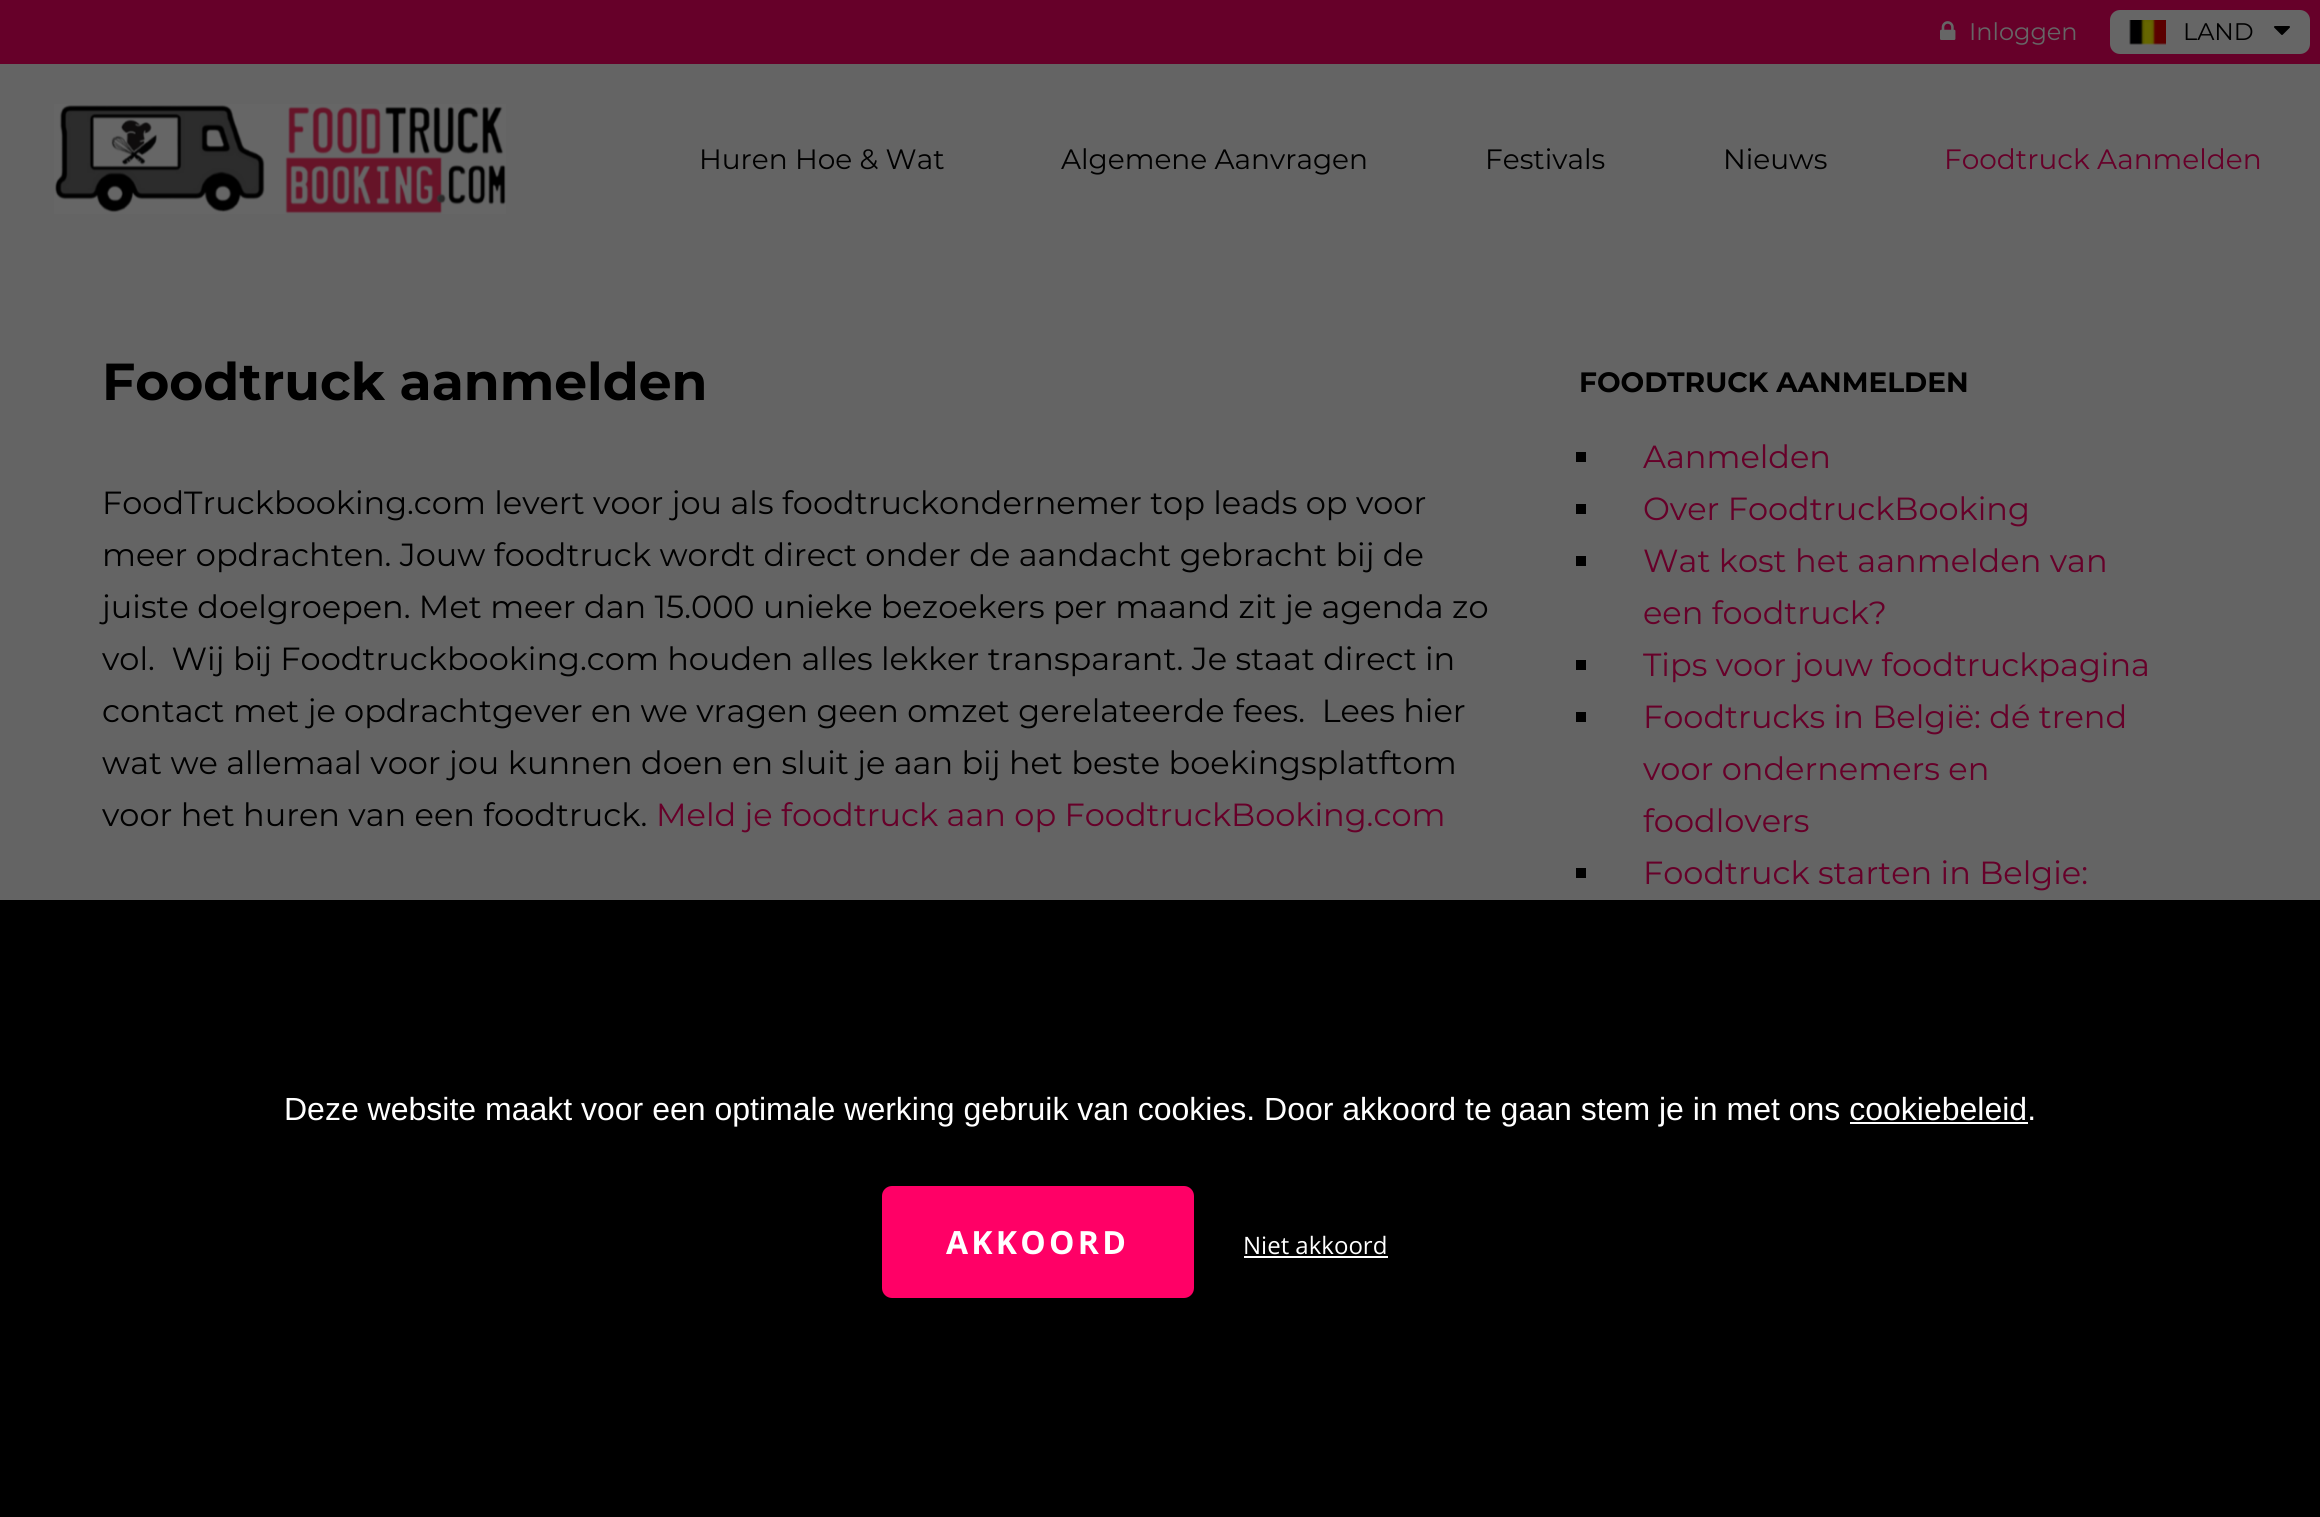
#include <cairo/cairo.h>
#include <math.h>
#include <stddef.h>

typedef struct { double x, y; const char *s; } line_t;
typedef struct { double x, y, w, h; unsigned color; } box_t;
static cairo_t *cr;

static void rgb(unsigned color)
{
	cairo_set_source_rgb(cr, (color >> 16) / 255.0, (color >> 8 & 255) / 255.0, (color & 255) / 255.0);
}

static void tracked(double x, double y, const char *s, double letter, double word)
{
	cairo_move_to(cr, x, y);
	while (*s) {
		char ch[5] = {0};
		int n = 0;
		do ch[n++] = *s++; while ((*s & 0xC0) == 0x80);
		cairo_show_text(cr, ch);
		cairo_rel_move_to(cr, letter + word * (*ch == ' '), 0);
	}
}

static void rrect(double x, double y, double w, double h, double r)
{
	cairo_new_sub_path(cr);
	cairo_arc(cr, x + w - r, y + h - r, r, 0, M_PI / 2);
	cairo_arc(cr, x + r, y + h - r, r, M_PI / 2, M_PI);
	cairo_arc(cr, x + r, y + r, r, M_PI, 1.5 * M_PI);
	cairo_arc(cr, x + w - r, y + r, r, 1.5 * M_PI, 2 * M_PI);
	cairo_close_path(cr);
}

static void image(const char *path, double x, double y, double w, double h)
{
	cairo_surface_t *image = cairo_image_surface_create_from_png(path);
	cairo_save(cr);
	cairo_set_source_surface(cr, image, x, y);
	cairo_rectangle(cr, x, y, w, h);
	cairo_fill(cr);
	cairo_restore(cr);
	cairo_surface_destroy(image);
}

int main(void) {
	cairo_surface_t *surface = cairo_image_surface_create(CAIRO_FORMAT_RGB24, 2320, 1517);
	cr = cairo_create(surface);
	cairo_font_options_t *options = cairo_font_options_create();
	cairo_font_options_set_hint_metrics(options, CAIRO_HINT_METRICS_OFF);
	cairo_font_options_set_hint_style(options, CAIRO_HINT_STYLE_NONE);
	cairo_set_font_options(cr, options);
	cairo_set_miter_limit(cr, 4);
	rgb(0x646464);
	cairo_paint(cr);
	rgb(0x660029);
	cairo_rectangle(cr, 0, 0, 2320, 64);
	cairo_fill(cr);
	image("img/1.png", 1940, 21, 16, 19);
	rgb(0x666666);
	rrect(2110, 10, 200, 44, 10);
	cairo_fill(cr);
	image("img/2.png", 2129, 20, 37, 25);
	image("img/3.png", 2274, 26, 16, 9);
	image("img/4.png", 54, 104, 452, 110);
	{
		static const box_t items[] = {
			{1576, 452, 10, 10, 0x000000},
			{1576, 504, 10, 10, 0x000000},
			{1576, 556, 10, 10, 0x000000},
			{1576, 660, 10, 10, 0x000000},
			{1576, 712, 10, 10, 0x000000},
			{1576, 868, 10, 10, 0x000000},
			{0, 900, 2320, 617, 0x000000},
			{1850, 1122, 178, 2, 0xffffff},
		};
		for (size_t i = 0; i < sizeof items / sizeof *items; i++) {
			rgb(items[i].color);
			cairo_rectangle(cr, items[i].x, items[i].y, items[i].w, items[i].h);
			cairo_fill(cr);
		}
	}
	rgb(0xff0066);
	rrect(882, 1186, 312, 112, 10);
	cairo_fill(cr);
	rgb(0xffffff);
	cairo_rectangle(cr, 1244, 1256, 144, 2);
	cairo_fill(cr);
	cairo_select_font_face(cr, "Montserrat", CAIRO_FONT_SLANT_NORMAL, CAIRO_FONT_WEIGHT_NORMAL);
	cairo_set_font_size(cr, 24);
	rgb(0x666666);
	cairo_move_to(cr, 1969, 40);
	cairo_show_text(cr, "Inloggen");
	rgb(0x000000);
	cairo_move_to(cr, 2183, 40);
	cairo_show_text(cr, "LAND");
	cairo_set_font_size(cr, 28);
	{
		static const line_t items[] = {
			{699, 169, "Huren Hoe & Wat"},
			{1061, 169, "Algemene Aanvragen"},
			{1485, 169, "Festivals"},
			{1723, 169, "Nieuws"},
		};
		for (size_t i = 0; i < sizeof items / sizeof *items; i++) {
			cairo_move_to(cr, items[i].x, items[i].y);
			cairo_show_text(cr, items[i].s);
		}
	}
	rgb(0x660029);
	cairo_move_to(cr, 1944, 169);
	cairo_show_text(cr, "Foodtruck Aanmelden");
	cairo_select_font_face(cr, "Montserrat", CAIRO_FONT_SLANT_NORMAL, CAIRO_FONT_WEIGHT_BOLD);
	cairo_set_font_size(cr, 52);
	rgb(0x000000);
	cairo_move_to(cr, 102, 400);
	cairo_show_text(cr, "Foodtruck aanmelden");
	cairo_select_font_face(cr, "Montserrat", CAIRO_FONT_SLANT_NORMAL, CAIRO_FONT_WEIGHT_NORMAL);
	cairo_set_font_size(cr, 32);
	{
		static const line_t items[] = {
			{102, 514, "FoodTruckbooking.com levert voor jou als foodtruckondernemer top leads op voor"},
			{102, 566, "meer opdrachten. Jouw foodtruck wordt direct onder de aandacht gebracht bij de"},
			{102, 618, "juiste doelgroepen. Met meer dan 15.000 unieke bezoekers per maand zit je agenda zo"},
			{102, 670, "vol.  Wij bij Foodtruckbooking.com houden alles lekker transparant. Je staat direct in"},
			{102, 722, "contact met je opdrachtgever en we vragen geen omzet gerelateerde fees.  Lees hier"},
			{102, 774, "wat we allemaal voor jou kunnen doen en sluit je aan bij het beste boekingsplatftom"},
			{102, 826, "voor het huren van een foodtruck."},
		};
		for (size_t i = 0; i < sizeof items / sizeof *items; i++) {
			cairo_move_to(cr, items[i].x, items[i].y);
			cairo_show_text(cr, items[i].s);
		}
	}
	rgb(0x660029);
	cairo_move_to(cr, 656, 826);
	cairo_show_text(cr, "Meld je foodtruck aan op FoodtruckBooking.com");
	cairo_select_font_face(cr, "Montserrat", CAIRO_FONT_SLANT_NORMAL, CAIRO_FONT_WEIGHT_BOLD);
	cairo_set_font_size(cr, 28);
	rgb(0x000000);
	cairo_move_to(cr, 1579, 392);
	cairo_show_text(cr, "FOODTRUCK AANMELDEN");
	cairo_select_font_face(cr, "Montserrat", CAIRO_FONT_SLANT_NORMAL, CAIRO_FONT_WEIGHT_NORMAL);
	cairo_set_font_size(cr, 32);
	rgb(0x660029);
	{
		static const line_t items[] = {
			{1643, 468, "Aanmelden"},
			{1643, 520, "Over FoodtruckBooking"},
			{1643, 572, "Wat kost het aanmelden van"},
			{1643, 624, "een foodtruck?"},
			{1643, 676, "Tips voor jouw foodtruckpagina"},
			{1643, 728, "Foodtrucks in België: dé trend"},
			{1643, 780, "voor ondernemers en"},
			{1643, 832, "foodlovers"},
			{1643, 884, "Foodtruck starten in Belgie:"},
		};
		for (size_t i = 0; i < sizeof items / sizeof *items; i++) {
			cairo_move_to(cr, items[i].x, items[i].y);
			cairo_show_text(cr, items[i].s);
		}
	}
	cairo_select_font_face(cr, "Liberation Sans", CAIRO_FONT_SLANT_NORMAL, CAIRO_FONT_WEIGHT_NORMAL);
	rgb(0xffffff);
	cairo_move_to(cr, 284, 1120);
	cairo_show_text(cr, "Deze website maakt voor een optimale werking gebruik van cookies. Door akkoord te gaan stem je in met ons cookiebeleid.");
	cairo_select_font_face(cr, "Open Sans", CAIRO_FONT_SLANT_NORMAL, CAIRO_FONT_WEIGHT_BOLD);
	tracked(946, 1254, "AKKOORD", 3.25, 0);
	cairo_select_font_face(cr, "Open Sans", CAIRO_FONT_SLANT_NORMAL, CAIRO_FONT_WEIGHT_NORMAL);
	cairo_set_font_size(cr, 24);
	cairo_move_to(cr, 1243, 1254);
	cairo_show_text(cr, "Niet akkoord");
	cairo_surface_write_to_png(surface, "page.png");
	cairo_font_options_destroy(options);
	cairo_destroy(cr);
	cairo_surface_destroy(surface);
	return 0;
}
